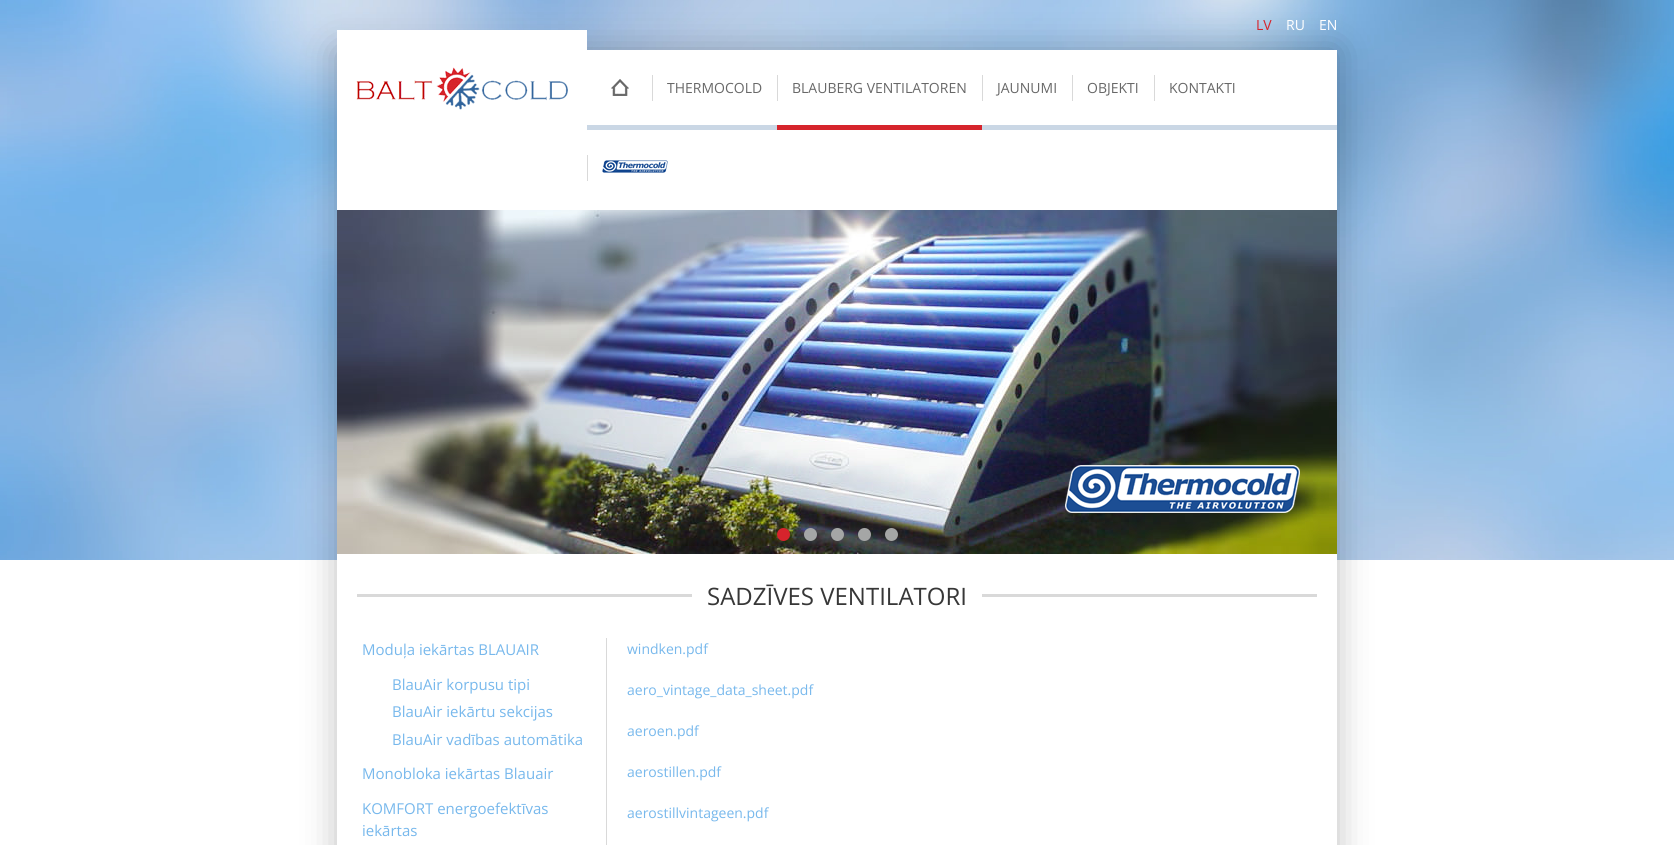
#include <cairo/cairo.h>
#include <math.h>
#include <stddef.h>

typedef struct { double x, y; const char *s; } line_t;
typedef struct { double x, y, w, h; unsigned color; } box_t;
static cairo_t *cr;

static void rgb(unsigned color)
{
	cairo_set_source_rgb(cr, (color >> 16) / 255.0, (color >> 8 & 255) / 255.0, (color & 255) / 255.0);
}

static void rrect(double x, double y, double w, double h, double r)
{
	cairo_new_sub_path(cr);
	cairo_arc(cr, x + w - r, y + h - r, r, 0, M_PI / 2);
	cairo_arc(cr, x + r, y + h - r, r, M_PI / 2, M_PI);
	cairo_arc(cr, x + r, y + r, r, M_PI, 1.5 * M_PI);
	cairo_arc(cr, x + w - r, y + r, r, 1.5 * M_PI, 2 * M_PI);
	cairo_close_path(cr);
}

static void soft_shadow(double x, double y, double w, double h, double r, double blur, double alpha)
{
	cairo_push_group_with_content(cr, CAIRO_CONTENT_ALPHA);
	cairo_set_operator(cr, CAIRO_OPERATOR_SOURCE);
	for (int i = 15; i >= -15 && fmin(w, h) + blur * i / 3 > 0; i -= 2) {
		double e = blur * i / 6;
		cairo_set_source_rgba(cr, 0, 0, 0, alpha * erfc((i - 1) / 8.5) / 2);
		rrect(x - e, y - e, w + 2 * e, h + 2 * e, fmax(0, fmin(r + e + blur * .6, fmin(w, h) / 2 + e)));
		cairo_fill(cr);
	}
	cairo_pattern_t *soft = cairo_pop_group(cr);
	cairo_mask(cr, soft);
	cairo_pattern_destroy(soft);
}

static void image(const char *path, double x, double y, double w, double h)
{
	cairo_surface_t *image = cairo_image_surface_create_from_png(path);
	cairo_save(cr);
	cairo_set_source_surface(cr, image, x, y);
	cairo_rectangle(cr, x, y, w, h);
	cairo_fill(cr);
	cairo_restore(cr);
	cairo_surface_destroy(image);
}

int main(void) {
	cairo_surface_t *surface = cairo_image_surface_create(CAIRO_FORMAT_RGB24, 1674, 845);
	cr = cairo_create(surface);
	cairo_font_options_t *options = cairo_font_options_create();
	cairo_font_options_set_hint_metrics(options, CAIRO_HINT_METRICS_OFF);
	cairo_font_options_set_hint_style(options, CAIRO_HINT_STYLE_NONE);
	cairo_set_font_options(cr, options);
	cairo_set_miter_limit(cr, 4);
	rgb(0xffffff);
	cairo_paint(cr);
	image("img/1.png", 0, 0, 1674, 560);
	rgb(0x000000);
	soft_shadow(337, 50, 1000, 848, 0, 17.5, 0.25);
	rgb(0xffffff);
	cairo_rectangle(cr, 337, 50, 1000, 795);
	cairo_fill(cr);
	cairo_rectangle(cr, 337, 30, 250, 20);
	cairo_fill(cr);
	image("img/2.png", 356, 67, 212, 43);
	rgb(0xcad7e5);
	cairo_rectangle(cr, 587, 125, 750, 5);
	cairo_fill(cr);
	image("img/3.png", 611, 79, 18, 17);
	{
		static const box_t items[] = {
			{652, 75, 1, 26, 0xd9d9d9},
			{777, 125, 205, 5, 0xd6242c},
			{777, 75, 1, 26, 0xd9d9d9},
			{982, 75, 1, 26, 0xd9d9d9},
			{1072, 75, 1, 26, 0xd9d9d9},
			{1154, 75, 1, 26, 0xd9d9d9},
			{587, 155, 1, 26, 0xd9d9d9},
		};
		for (size_t i = 0; i < sizeof items / sizeof *items; i++) {
			rgb(items[i].color);
			cairo_rectangle(cr, items[i].x, items[i].y, items[i].w, items[i].h);
			cairo_fill(cr);
		}
	}
	image("img/4.png", 602, 160, 66, 13);
	image("img/5.png", 337, 210, 1000, 344);
	rgb(0xd6242c);
	cairo_arc(cr, 783.5, 534.5, 6.5, 0, 2 * M_PI);
	cairo_fill(cr);
	rgb(0xa5a6a6);
	cairo_arc(cr, 810.5, 534.5, 6.5, 0, 2 * M_PI);
	cairo_fill(cr);
	cairo_arc(cr, 837.5, 534.5, 6.5, 0, 2 * M_PI);
	cairo_fill(cr);
	cairo_arc(cr, 864.5, 534.5, 6.5, 0, 2 * M_PI);
	cairo_fill(cr);
	cairo_arc(cr, 891.5, 534.5, 6.5, 0, 2 * M_PI);
	cairo_fill(cr);
	{
		static const box_t items[] = {
			{357, 594, 960, 3, 0xd9d9d9},
			{692, 594, 290, 3, 0xffffff},
			{606, 638, 1, 207, 0xd9d9d9},
		};
		for (size_t i = 0; i < sizeof items / sizeof *items; i++) {
			rgb(items[i].color);
			cairo_rectangle(cr, items[i].x, items[i].y, items[i].w, items[i].h);
			cairo_fill(cr);
		}
	}
	cairo_select_font_face(cr, "Open Sans", CAIRO_FONT_SLANT_NORMAL, CAIRO_FONT_WEIGHT_NORMAL);
	cairo_set_font_size(cr, 14);
	rgb(0xd6242c);
	cairo_move_to(cr, 1256, 30);
	cairo_show_text(cr, "LV");
	rgb(0xffffff);
	cairo_move_to(cr, 1286, 30);
	cairo_show_text(cr, "RU");
	cairo_move_to(cr, 1319, 30);
	cairo_show_text(cr, "EN");
	rgb(0x686868);
	{
		static const line_t items[] = {
			{667, 93, "THERMOCOLD"},
			{792, 93, "BLAUBERG VENTILATOREN"},
			{997, 93, "JAUNUMI"},
			{1087, 93, "OBJEKTI"},
			{1169, 93, "KONTAKTI"},
		};
		for (size_t i = 0; i < sizeof items / sizeof *items; i++) {
			cairo_move_to(cr, items[i].x, items[i].y);
			cairo_show_text(cr, items[i].s);
		}
	}
	cairo_set_font_size(cr, 24);
	rgb(0x373737);
	cairo_move_to(cr, 707, 605);
	cairo_show_text(cr, "SADZĪVES VENTILATORI");
	cairo_set_font_size(cr, 15);
	rgb(0x77b8ec);
	{
		static const line_t items[] = {
			{362, 655, "Moduļa iekārtas BLAUAIR"},
			{392, 690, "BlauAir korpusu tipi"},
			{392, 717, "BlauAir iekārtu sekcijas"},
			{392, 745, "BlauAir vadības automātika"},
			{362, 779, "Monobloka iekārtas Blauair"},
			{362, 814, "KOMFORT energoefektīvas"},
			{362, 836, "iekārtas"},
		};
		for (size_t i = 0; i < sizeof items / sizeof *items; i++) {
			cairo_move_to(cr, items[i].x, items[i].y);
			cairo_show_text(cr, items[i].s);
		}
	}
	cairo_set_font_size(cr, 14);
	{
		static const line_t items[] = {
			{627, 654, "windken.pdf"},
			{627, 695, "aero_vintage_data_sheet.pdf"},
			{627, 736, "aeroen.pdf"},
			{627, 777, "aerostillen.pdf"},
			{627, 818, "aerostillvintageen.pdf"},
		};
		for (size_t i = 0; i < sizeof items / sizeof *items; i++) {
			cairo_move_to(cr, items[i].x, items[i].y);
			cairo_show_text(cr, items[i].s);
		}
	}
	cairo_surface_write_to_png(surface, "page.png");
	cairo_font_options_destroy(options);
	cairo_destroy(cr);
	cairo_surface_destroy(surface);
	return 0;
}
